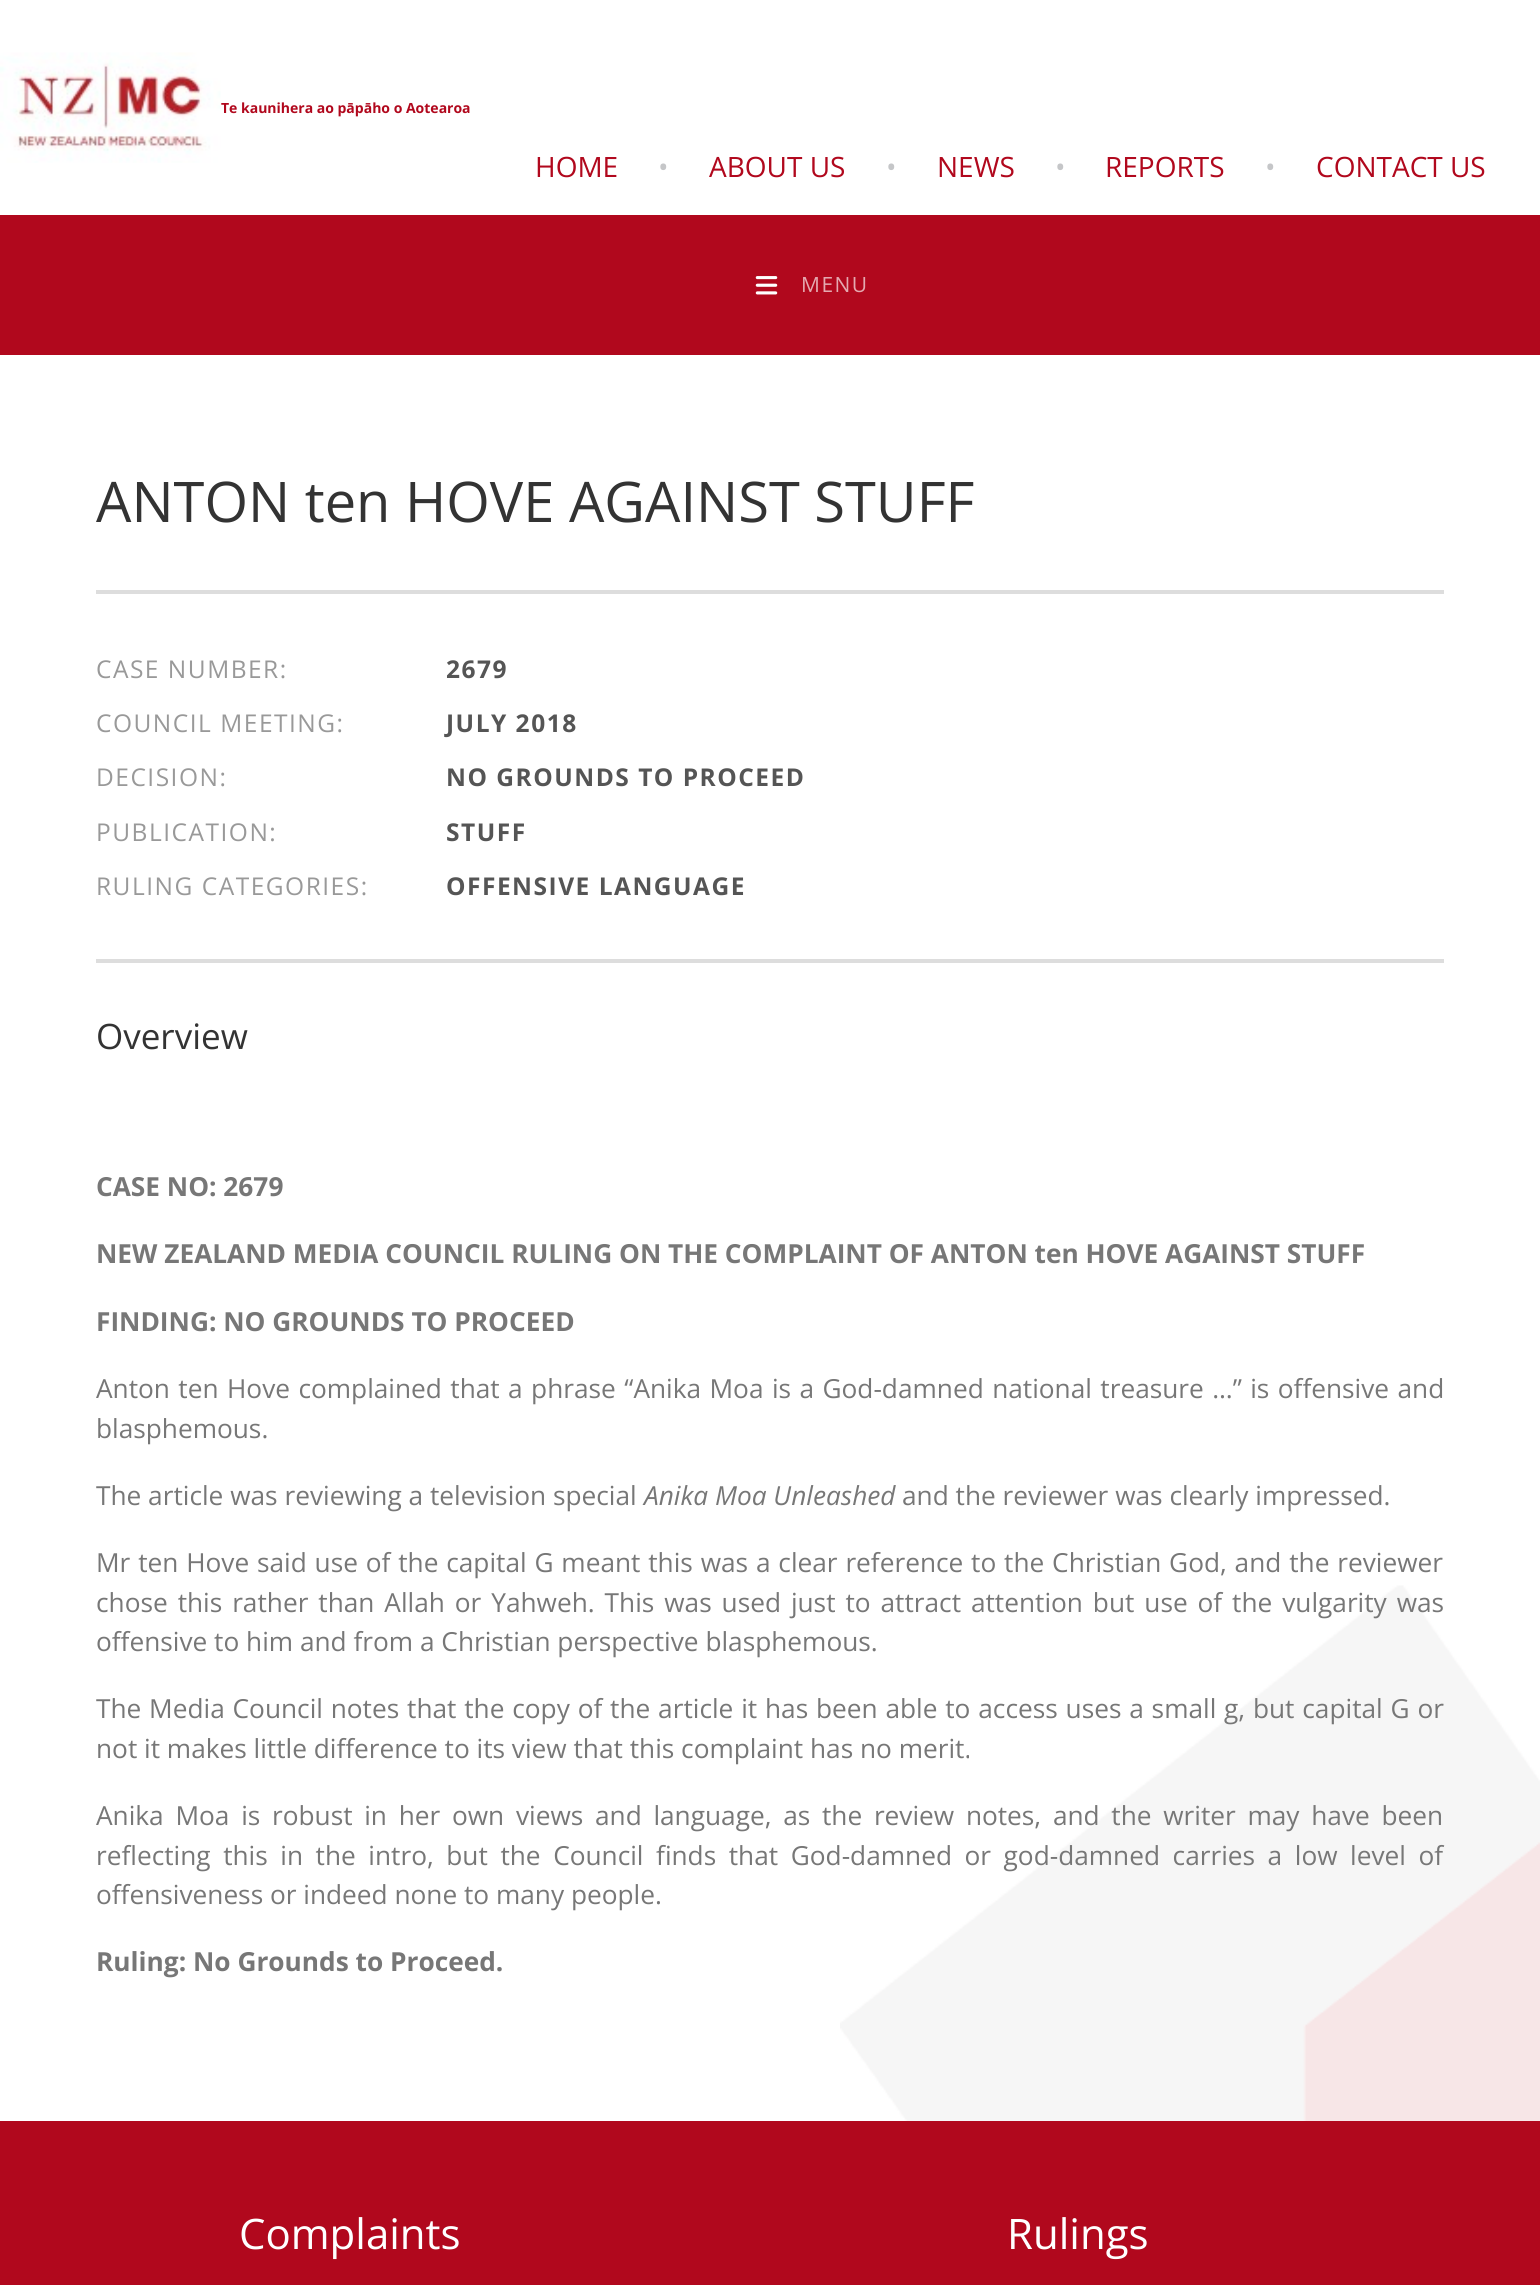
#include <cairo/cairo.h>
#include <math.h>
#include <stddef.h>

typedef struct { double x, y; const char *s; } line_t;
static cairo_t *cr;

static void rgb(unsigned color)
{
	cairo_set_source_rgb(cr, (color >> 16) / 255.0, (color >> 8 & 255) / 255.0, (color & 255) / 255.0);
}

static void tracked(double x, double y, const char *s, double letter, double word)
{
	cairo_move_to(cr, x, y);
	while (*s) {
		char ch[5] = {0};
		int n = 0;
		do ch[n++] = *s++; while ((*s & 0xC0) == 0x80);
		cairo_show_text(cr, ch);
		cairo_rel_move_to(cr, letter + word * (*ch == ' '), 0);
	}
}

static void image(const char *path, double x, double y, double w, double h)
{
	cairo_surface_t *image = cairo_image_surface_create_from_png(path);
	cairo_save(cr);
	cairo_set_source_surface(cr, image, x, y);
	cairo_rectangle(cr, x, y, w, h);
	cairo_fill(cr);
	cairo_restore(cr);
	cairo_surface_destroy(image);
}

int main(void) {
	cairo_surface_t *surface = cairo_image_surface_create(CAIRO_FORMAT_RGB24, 1540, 2285);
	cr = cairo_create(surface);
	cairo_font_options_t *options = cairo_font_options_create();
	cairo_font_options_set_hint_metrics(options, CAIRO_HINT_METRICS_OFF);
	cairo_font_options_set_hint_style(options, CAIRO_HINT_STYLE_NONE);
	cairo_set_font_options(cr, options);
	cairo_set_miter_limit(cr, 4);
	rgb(0xffffff);
	cairo_paint(cr);
	image("img/1.png", 0, 52, 221, 111);
	rgb(0xb1081d);
	cairo_rectangle(cr, 0, 215, 1540, 140);
	cairo_fill(cr);
	image("img/2.png", 755, 276, 23, 19);
	rgb(0xdddddd);
	cairo_rectangle(cr, 96, 590, 1348, 4);
	cairo_fill(cr);
	cairo_rectangle(cr, 96, 959, 1348, 4);
	cairo_fill(cr);
	image("img/3.png", 840, 1585, 700, 536);
	rgb(0xb1081d);
	cairo_rectangle(cr, 0, 2121, 1540, 164);
	cairo_fill(cr);
	cairo_select_font_face(cr, "Open Sans", CAIRO_FONT_SLANT_NORMAL, CAIRO_FONT_WEIGHT_BOLD);
	cairo_set_font_size(cr, 14);
	cairo_move_to(cr, 221, 113);
	cairo_show_text(cr, "Te kaunihera ao pāpāho o Aotearoa");
	cairo_select_font_face(cr, "Open Sans", CAIRO_FONT_SLANT_NORMAL, CAIRO_FONT_WEIGHT_NORMAL);
	cairo_set_font_size(cr, 28);
	cairo_move_to(cr, 535, 177);
	cairo_show_text(cr, "HOME");
	rgb(0xc5c6c8);
	cairo_move_to(cr, 658, 177);
	cairo_show_text(cr, "•");
	rgb(0xb1081d);
	cairo_move_to(cr, 709, 177);
	cairo_show_text(cr, "ABOUT US");
	rgb(0xc5c6c8);
	cairo_move_to(cr, 886, 177);
	cairo_show_text(cr, "•");
	rgb(0xb1081d);
	cairo_move_to(cr, 937, 177);
	cairo_show_text(cr, "NEWS");
	rgb(0xc5c6c8);
	cairo_move_to(cr, 1055, 177);
	cairo_show_text(cr, "•");
	rgb(0xb1081d);
	cairo_move_to(cr, 1105, 177);
	cairo_show_text(cr, "REPORTS");
	rgb(0xc5c6c8);
	cairo_move_to(cr, 1265, 177);
	cairo_show_text(cr, "•");
	rgb(0xb1081d);
	cairo_move_to(cr, 1316, 177);
	cairo_show_text(cr, "CONTACT US");
	cairo_set_font_size(cr, 21);
	rgb(0xe4a9b0);
	tracked(801, 292, "MENU", 1.5, 0);
	cairo_set_font_size(cr, 56);
	rgb(0x333333);
	cairo_move_to(cr, 96, 522);
	cairo_show_text(cr, "ANTON ten HOVE AGAINST STUFF");
	cairo_set_font_size(cr, 24.5);
	rgb(0x999999);
	tracked(96, 678, "CASE NUMBER:", 1.5, 0);
	cairo_select_font_face(cr, "Open Sans", CAIRO_FONT_SLANT_NORMAL, CAIRO_FONT_WEIGHT_BOLD);
	rgb(0x555555);
	tracked(446, 678, "2679", 1.5, 0);
	cairo_select_font_face(cr, "Open Sans", CAIRO_FONT_SLANT_NORMAL, CAIRO_FONT_WEIGHT_NORMAL);
	rgb(0x999999);
	tracked(96, 732, "COUNCIL MEETING:", 1.5, 0);
	cairo_select_font_face(cr, "Open Sans", CAIRO_FONT_SLANT_NORMAL, CAIRO_FONT_WEIGHT_BOLD);
	rgb(0x555555);
	tracked(446, 732, "JULY 2018", 1.5, 0);
	cairo_select_font_face(cr, "Open Sans", CAIRO_FONT_SLANT_NORMAL, CAIRO_FONT_WEIGHT_NORMAL);
	rgb(0x999999);
	tracked(96, 786, "DECISION:", 1.5, 0);
	cairo_select_font_face(cr, "Open Sans", CAIRO_FONT_SLANT_NORMAL, CAIRO_FONT_WEIGHT_BOLD);
	rgb(0x555555);
	tracked(446, 786, "NO GROUNDS TO PROCEED", 1.5, 0);
	cairo_select_font_face(cr, "Open Sans", CAIRO_FONT_SLANT_NORMAL, CAIRO_FONT_WEIGHT_NORMAL);
	rgb(0x999999);
	tracked(96, 841, "PUBLICATION:", 1.5, 0);
	cairo_select_font_face(cr, "Open Sans", CAIRO_FONT_SLANT_NORMAL, CAIRO_FONT_WEIGHT_BOLD);
	rgb(0x555555);
	tracked(446, 841, "STUFF", 1.5, 0);
	cairo_select_font_face(cr, "Open Sans", CAIRO_FONT_SLANT_NORMAL, CAIRO_FONT_WEIGHT_NORMAL);
	rgb(0x999999);
	tracked(96, 895, "RULING CATEGORIES:", 1.5, 0);
	cairo_select_font_face(cr, "Open Sans", CAIRO_FONT_SLANT_NORMAL, CAIRO_FONT_WEIGHT_BOLD);
	rgb(0x555555);
	tracked(446, 895, "OFFENSIVE LANGUAGE", 1.5, 0);
	cairo_select_font_face(cr, "Open Sans", CAIRO_FONT_SLANT_NORMAL, CAIRO_FONT_WEIGHT_NORMAL);
	cairo_set_font_size(cr, 35);
	rgb(0x333333);
	cairo_move_to(cr, 96, 1049);
	cairo_show_text(cr, "Overview");
	cairo_select_font_face(cr, "Open Sans", CAIRO_FONT_SLANT_NORMAL, CAIRO_FONT_WEIGHT_BOLD);
	cairo_set_font_size(cr, 26.25);
	rgb(0x777777);
	{
		static const line_t items[] = {
			{96, 1196, "CASE NO: 2679"},
			{96, 1263, "NEW ZEALAND MEDIA COUNCIL RULING ON THE COMPLAINT OF ANTON ten HOVE AGAINST STUFF"},
			{96, 1331, "FINDING: NO GROUNDS TO PROCEED"},
		};
		for (size_t i = 0; i < sizeof items / sizeof *items; i++) {
			cairo_move_to(cr, items[i].x, items[i].y);
			cairo_show_text(cr, items[i].s);
		}
	}
	cairo_select_font_face(cr, "Open Sans", CAIRO_FONT_SLANT_NORMAL, CAIRO_FONT_WEIGHT_NORMAL);
	tracked(96, 1398, "Anton ten Hove complained that a phrase “Anika Moa is a God-damned national treasure …” is offensive and", 0, 1.6);
	cairo_move_to(cr, 96, 1438);
	cairo_show_text(cr, "blasphemous.");
	cairo_move_to(cr, 96, 1505);
	cairo_show_text(cr, "The article was reviewing a television special");
	cairo_select_font_face(cr, "Open Sans", CAIRO_FONT_SLANT_ITALIC, CAIRO_FONT_WEIGHT_NORMAL);
	cairo_move_to(cr, 644, 1505);
	cairo_show_text(cr, "Anika Moa Unleashed");
	cairo_select_font_face(cr, "Open Sans", CAIRO_FONT_SLANT_NORMAL, CAIRO_FONT_WEIGHT_NORMAL);
	cairo_move_to(cr, 902, 1505);
	cairo_show_text(cr, "and the reviewer was clearly impressed.");
	tracked(96, 1572, "Mr ten Hove said use of the capital G meant this was a clear reference to the Christian God, and the reviewer", 0, 1);
	tracked(96, 1612, "chose this rather than Allah or Yahweh. This was used just to attract attention but use of the vulgarity was", 0, 3.1);
	cairo_move_to(cr, 96, 1651);
	cairo_show_text(cr, "offensive to him and from a Christian perspective blasphemous.");
	tracked(96, 1718, "The Media Council notes that the copy of the article it has been able to access uses a small g, but capital G or", 0, 1);
	cairo_move_to(cr, 96, 1758);
	cairo_show_text(cr, "not it makes little difference to its view that this complaint has no merit.");
	tracked(96, 1825, "Anika Moa is robust in her own views and language, as the review notes, and the writer may have been", 0, 4.9);
	tracked(96, 1865, "reflecting this in the intro, but the Council finds that God-damned or god-damned carries a low level of", 0, 5.75);
	cairo_move_to(cr, 96, 1904);
	cairo_show_text(cr, "offensiveness or indeed none to many people.");
	cairo_select_font_face(cr, "Open Sans", CAIRO_FONT_SLANT_NORMAL, CAIRO_FONT_WEIGHT_BOLD);
	cairo_move_to(cr, 96, 1971);
	cairo_show_text(cr, "Ruling: No Grounds to Proceed.");
	cairo_select_font_face(cr, "Open Sans", CAIRO_FONT_SLANT_NORMAL, CAIRO_FONT_WEIGHT_NORMAL);
	cairo_set_font_size(cr, 42);
	rgb(0xffffff);
	cairo_move_to(cr, 239, 2249);
	cairo_show_text(cr, "Complaints");
	cairo_move_to(cr, 1007, 2249);
	cairo_show_text(cr, "Rulings");
	cairo_surface_write_to_png(surface, "page.png");
	cairo_font_options_destroy(options);
	cairo_destroy(cr);
	cairo_surface_destroy(surface);
	return 0;
}
